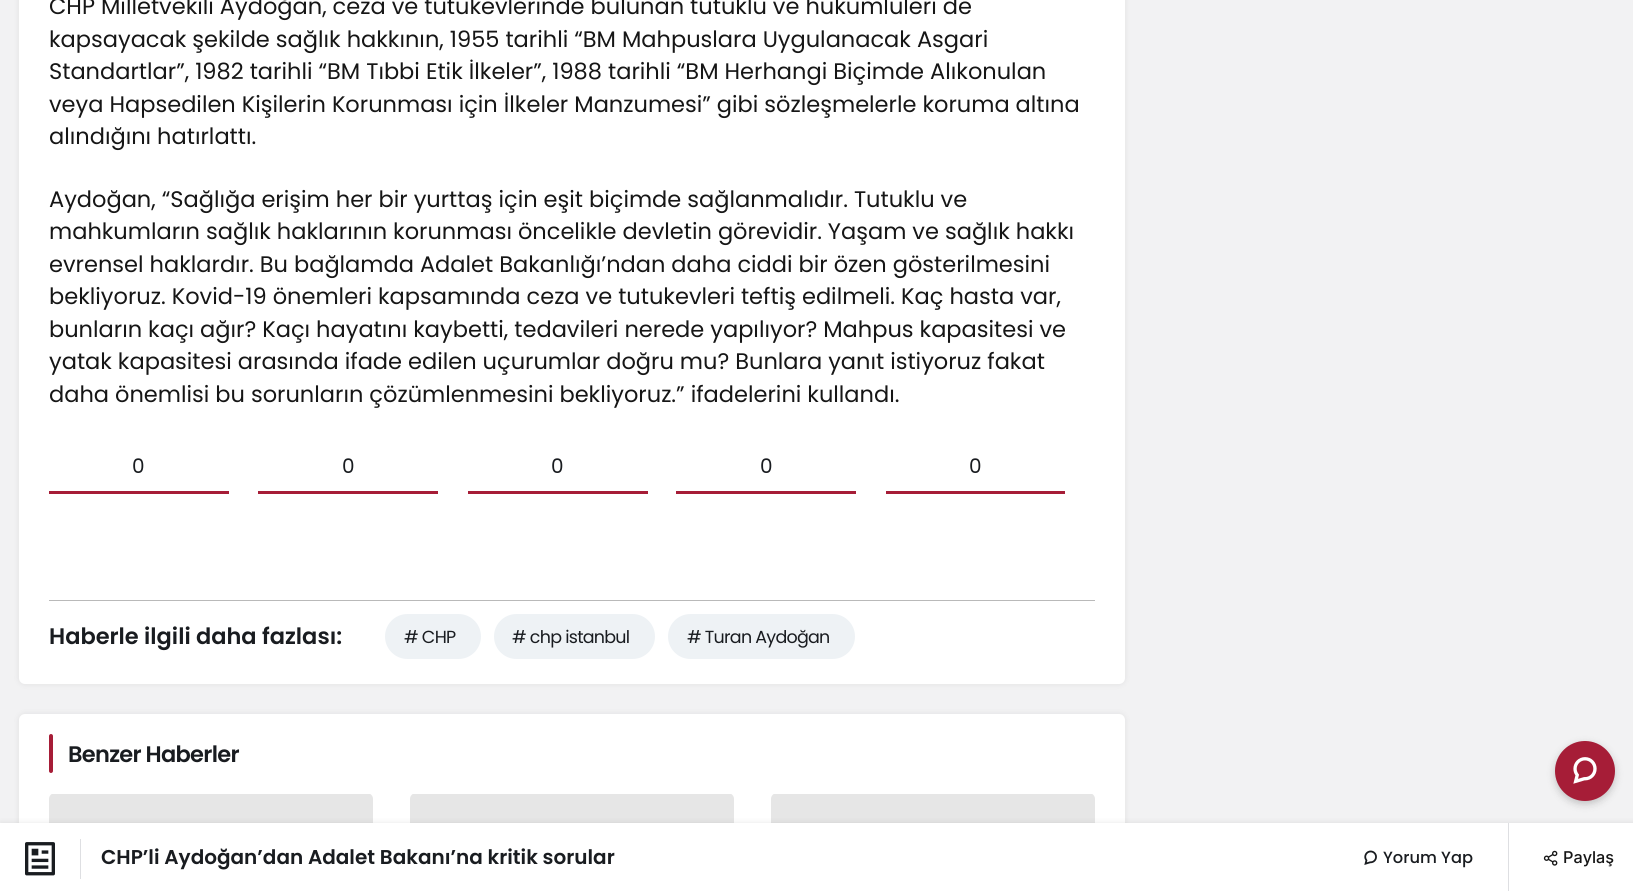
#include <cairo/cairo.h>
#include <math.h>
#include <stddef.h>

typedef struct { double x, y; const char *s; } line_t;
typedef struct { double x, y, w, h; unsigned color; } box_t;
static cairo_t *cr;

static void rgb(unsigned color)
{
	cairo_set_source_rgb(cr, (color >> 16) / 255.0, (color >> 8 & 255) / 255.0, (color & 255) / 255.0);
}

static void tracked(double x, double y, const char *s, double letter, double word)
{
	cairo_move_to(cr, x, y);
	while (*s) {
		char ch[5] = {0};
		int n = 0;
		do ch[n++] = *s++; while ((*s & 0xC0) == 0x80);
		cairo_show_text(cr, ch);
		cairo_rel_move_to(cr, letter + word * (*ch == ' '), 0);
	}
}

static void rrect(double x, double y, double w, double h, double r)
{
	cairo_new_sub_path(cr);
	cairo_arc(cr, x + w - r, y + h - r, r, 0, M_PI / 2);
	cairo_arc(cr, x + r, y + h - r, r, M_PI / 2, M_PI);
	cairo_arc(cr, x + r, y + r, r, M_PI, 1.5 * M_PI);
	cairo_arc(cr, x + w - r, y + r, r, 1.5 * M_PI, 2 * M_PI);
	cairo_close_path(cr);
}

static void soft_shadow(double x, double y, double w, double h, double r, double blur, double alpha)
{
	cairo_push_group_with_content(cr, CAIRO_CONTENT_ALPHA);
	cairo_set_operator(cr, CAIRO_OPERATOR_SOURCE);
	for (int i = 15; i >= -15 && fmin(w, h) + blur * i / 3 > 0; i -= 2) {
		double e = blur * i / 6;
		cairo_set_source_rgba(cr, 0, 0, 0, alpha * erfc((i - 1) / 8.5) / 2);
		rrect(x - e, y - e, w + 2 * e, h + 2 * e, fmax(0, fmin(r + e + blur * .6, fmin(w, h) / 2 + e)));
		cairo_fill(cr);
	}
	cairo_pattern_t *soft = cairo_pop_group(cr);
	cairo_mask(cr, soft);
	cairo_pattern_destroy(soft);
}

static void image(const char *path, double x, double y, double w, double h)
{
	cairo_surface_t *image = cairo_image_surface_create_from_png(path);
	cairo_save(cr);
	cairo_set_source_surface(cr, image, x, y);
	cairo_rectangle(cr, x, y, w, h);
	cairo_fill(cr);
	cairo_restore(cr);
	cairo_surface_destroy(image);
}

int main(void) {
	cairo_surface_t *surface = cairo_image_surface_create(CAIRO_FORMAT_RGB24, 1633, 894);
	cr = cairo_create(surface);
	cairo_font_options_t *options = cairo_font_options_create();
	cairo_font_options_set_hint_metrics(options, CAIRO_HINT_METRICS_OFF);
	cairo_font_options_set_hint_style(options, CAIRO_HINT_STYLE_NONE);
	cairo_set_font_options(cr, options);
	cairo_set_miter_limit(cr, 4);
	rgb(0xf2f2f3);
	cairo_paint(cr);
	rgb(0x32353d);
	soft_shadow(19, -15, 1106, 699, 6, 3, 0.1);
	rgb(0xffffff);
	rrect(19, -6, 1106, 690, 6);
	cairo_fill(cr);
	{
		static const box_t items[] = {
			{49, 491, 180, 3, 0xa61d37},
			{258, 491, 180, 3, 0xa61d37},
			{468, 491, 180, 3, 0xa61d37},
			{676, 491, 180, 3, 0xa61d37},
			{886, 491, 179, 3, 0xa61d37},
			{49, 600, 1046, 1, 0xb9b9b9},
		};
		for (size_t i = 0; i < sizeof items / sizeof *items; i++) {
			rgb(items[i].color);
			cairo_rectangle(cr, items[i].x, items[i].y, items[i].w, items[i].h);
			cairo_fill(cr);
		}
	}
	rgb(0xeef2f5);
	rrect(385, 614, 96, 45, 22.5);
	cairo_fill(cr);
	rrect(494, 614, 161, 45, 22.5);
	cairo_fill(cr);
	rrect(668, 614, 187, 45, 22.5);
	cairo_fill(cr);
	rgb(0x32353d);
	soft_shadow(19, 714, 1106, 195, 6, 3, 0.1);
	rgb(0xffffff);
	rrect(19, 714, 1106, 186, 6);
	cairo_fill(cr);
	cairo_save(cr);
	rrect(49, 793, 324, 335, 6);
	cairo_clip(cr);
	rgb(0xe6e6e6);
	cairo_rectangle(cr, 49, 794, 324, 29);
	cairo_fill(cr);
	cairo_restore(cr);
	cairo_save(cr);
	rrect(410, 793, 324, 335, 6);
	cairo_clip(cr);
	rgb(0xe6e6e6);
	cairo_rectangle(cr, 410, 794, 324, 29);
	cairo_fill(cr);
	cairo_restore(cr);
	cairo_save(cr);
	rrect(771, 793, 324, 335, 6);
	cairo_clip(cr);
	rgb(0xe6e6e6);
	cairo_rectangle(cr, 771, 794, 324, 29);
	cairo_fill(cr);
	cairo_restore(cr);
	rgb(0x000000);
	soft_shadow(1, 823, 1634, 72, 0, 3, 0.1);
	rgb(0xffffff);
	cairo_rectangle(cr, 0, 823, 1633, 71);
	cairo_fill(cr);
	image("img/1.png", 25, 842, 30, 34);
	rgb(0xdedfe2);
	cairo_rectangle(cr, 80, 839, 1, 40);
	cairo_fill(cr);
	image("img/2.png", 1364, 850, 13, 15);
	cairo_rectangle(cr, 1508, 823, 1, 68);
	cairo_fill(cr);
	image("img/3.png", 1543, 850, 15, 16);
	rgb(0xa61d37);
	rrect(49, 734, 4, 39, 2);
	cairo_fill(cr);
	rgb(0x000000);
	soft_shadow(1555, 744, 60, 60, 30, 4, 0.2);
	rgb(0xa61d37);
	cairo_arc(cr, 1585, 771, 30, 0, 2 * M_PI);
	cairo_fill(cr);
	image("img/4.png", 1573, 757, 24, 27);
	cairo_select_font_face(cr, "Poppins", CAIRO_FONT_SLANT_NORMAL, CAIRO_FONT_WEIGHT_NORMAL);
	cairo_set_font_size(cr, 22.5);
	rgb(0x161616);
	{
		static const line_t items[] = {
			{49, 14, "CHP Milletvekili Aydoğan, ceza ve tutukevlerinde bulunan tutuklu ve hükümlüleri de"},
			{49, 47, "kapsayacak şekilde sağlık hakkının, 1955 tarihli “BM Mahpuslara Uygulanacak Asgari"},
			{49, 79, "Standartlar”, 1982 tarihli “BM Tıbbi Etik İlkeler”, 1988 tarihli “BM Herhangi Biçimde Alıkonulan"},
			{49, 112, "veya Hapsedilen Kişilerin Korunması için İlkeler Manzumesi” gibi sözleşmelerle koruma altına"},
			{49, 144, "alındığını hatırlattı."},
			{49, 207, "Aydoğan, “Sağlığa erişim her bir yurttaş için eşit biçimde sağlanmalıdır. Tutuklu ve"},
			{49, 239, "mahkumların sağlık haklarının korunması öncelikle devletin görevidir. Yaşam ve sağlık hakkı"},
			{49, 272, "evrensel haklardır. Bu bağlamda Adalet Bakanlığı’ndan daha ciddi bir özen gösterilmesini"},
			{49, 304, "bekliyoruz. Kovid-19 önemleri kapsamında ceza ve tutukevleri teftiş edilmeli. Kaç hasta var,"},
			{49, 337, "bunların kaçı ağır? Kaçı hayatını kaybetti, tedavileri nerede yapılıyor? Mahpus kapasitesi ve"},
			{49, 369, "yatak kapasitesi arasında ifade edilen uçurumlar doğru mu? Bunlara yanıt istiyoruz fakat"},
			{49, 402, "daha önemlisi bu sorunların çözümlenmesini bekliyoruz.” ifadelerini kullandı."},
		};
		for (size_t i = 0; i < sizeof items / sizeof *items; i++) {
			cairo_move_to(cr, items[i].x, items[i].y);
			cairo_show_text(cr, items[i].s);
		}
	}
	cairo_set_font_size(cr, 20);
	rgb(0x191c20);
	{
		static const line_t items[] = {
			{132, 473, "0"},
			{342, 473, "0"},
			{551, 473, "0"},
			{760, 473, "0"},
			{969, 473, "0"},
		};
		for (size_t i = 0; i < sizeof items / sizeof *items; i++) {
			cairo_move_to(cr, items[i].x, items[i].y);
			cairo_show_text(cr, items[i].s);
		}
	}
	cairo_select_font_face(cr, "Poppins SemiBold", CAIRO_FONT_SLANT_NORMAL, CAIRO_FONT_WEIGHT_NORMAL);
	cairo_set_font_size(cr, 22.5);
	cairo_move_to(cr, 49, 644);
	cairo_show_text(cr, "Haberle ilgili daha fazlası:");
	cairo_select_font_face(cr, "Poppins", CAIRO_FONT_SLANT_NORMAL, CAIRO_FONT_WEIGHT_NORMAL);
	cairo_set_font_size(cr, 17.5);
	{
		static const line_t items[] = {
			{404, 643, "# CHP"},
			{512, 643, "# chp istanbul"},
			{687, 643, "# Turan Aydoğan"},
		};
		for (size_t i = 0; i < sizeof items / sizeof *items; i++) {
			tracked(items[i].x, items[i].y, items[i].s, -0.75, 0);
		}
	}
	cairo_select_font_face(cr, "Poppins SemiBold", CAIRO_FONT_SLANT_NORMAL, CAIRO_FONT_WEIGHT_NORMAL);
	cairo_set_font_size(cr, 20);
	cairo_move_to(cr, 101, 864);
	cairo_show_text(cr, "CHP’li Aydoğan’dan Adalet Bakanı’na kritik sorular");
	cairo_select_font_face(cr, "Poppins Medium", CAIRO_FONT_SLANT_NORMAL, CAIRO_FONT_WEIGHT_NORMAL);
	cairo_set_font_size(cr, 16.25);
	cairo_move_to(cr, 1383, 863);
	cairo_show_text(cr, "Yorum Yap");
	cairo_select_font_face(cr, "Inter Medium", CAIRO_FONT_SLANT_NORMAL, CAIRO_FONT_WEIGHT_NORMAL);
	rgb(0x161616);
	cairo_move_to(cr, 1563, 863);
	cairo_show_text(cr, "Paylaş");
	cairo_select_font_face(cr, "Poppins SemiBold", CAIRO_FONT_SLANT_NORMAL, CAIRO_FONT_WEIGHT_NORMAL);
	cairo_set_font_size(cr, 22.5);
	rgb(0x191c20);
	tracked(68, 762, "Benzer Haberler", -0.7, 0);
	cairo_surface_write_to_png(surface, "page.png");
	cairo_font_options_destroy(options);
	cairo_destroy(cr);
	cairo_surface_destroy(surface);
	return 0;
}
